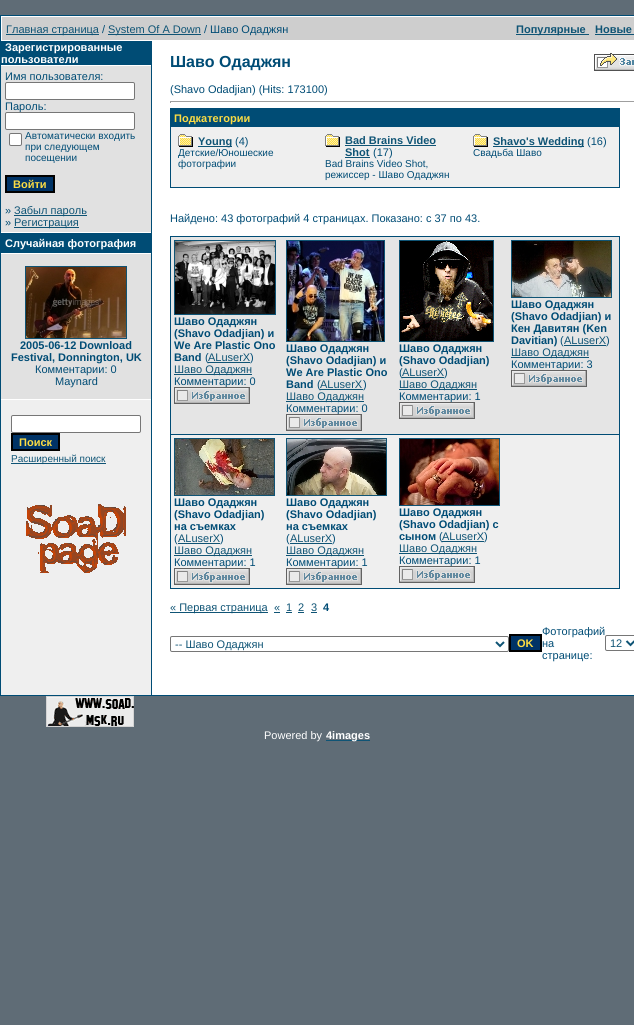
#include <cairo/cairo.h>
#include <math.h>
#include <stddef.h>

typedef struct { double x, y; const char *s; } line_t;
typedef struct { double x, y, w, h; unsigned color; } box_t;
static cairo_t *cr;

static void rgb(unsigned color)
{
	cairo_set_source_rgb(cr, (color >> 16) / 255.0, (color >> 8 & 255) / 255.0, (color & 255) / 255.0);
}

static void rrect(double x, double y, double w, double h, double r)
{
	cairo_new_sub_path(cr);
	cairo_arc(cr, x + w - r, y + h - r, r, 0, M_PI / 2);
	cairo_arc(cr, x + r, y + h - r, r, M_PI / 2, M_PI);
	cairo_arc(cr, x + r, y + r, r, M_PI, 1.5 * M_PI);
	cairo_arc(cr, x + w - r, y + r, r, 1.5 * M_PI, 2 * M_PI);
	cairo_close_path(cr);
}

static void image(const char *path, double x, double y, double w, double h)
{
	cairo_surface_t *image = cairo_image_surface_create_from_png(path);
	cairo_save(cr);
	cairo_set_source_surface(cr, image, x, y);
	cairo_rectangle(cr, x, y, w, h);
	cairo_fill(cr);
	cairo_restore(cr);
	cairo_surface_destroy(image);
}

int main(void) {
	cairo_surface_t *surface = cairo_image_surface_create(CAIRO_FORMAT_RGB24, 634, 1025);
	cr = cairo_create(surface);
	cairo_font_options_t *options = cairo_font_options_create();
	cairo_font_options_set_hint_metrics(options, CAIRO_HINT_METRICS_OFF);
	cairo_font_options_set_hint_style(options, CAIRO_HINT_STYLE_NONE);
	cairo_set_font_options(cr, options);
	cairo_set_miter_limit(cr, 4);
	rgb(0x5f6c76);
	cairo_paint(cr);
	{
		static const box_t items[] = {
			{0, 15, 634, 681, 0x004c75},
			{1, 16, 633, 679, 0xffffff},
			{2, 17, 632, 23, 0xcecece},
			{6, 34, 93, 1, 0x0f5475},
			{108, 34, 93, 1, 0x0f5475},
			{516, 34, 73, 1, 0x0f5475},
			{595, 34, 39, 1, 0x0f5475},
			{1, 400, 150, 295, 0xefefef},
			{1, 41, 150, 24, 0x004c75},
			{1, 66, 150, 166, 0xe1e1e1},
		};
		for (size_t i = 0; i < sizeof items / sizeof *items; i++) {
			rgb(items[i].color);
			cairo_rectangle(cr, items[i].x, items[i].y, items[i].w, items[i].h);
			cairo_fill(cr);
		}
	}
	rgb(0xffffff);
	rrect(5.5, 82.5, 129, 17, 1.5);
	cairo_fill_preserve(cr);
	rgb(0x767676);
	cairo_set_line_width(cr, 1);
	cairo_stroke(cr);
	rgb(0xffffff);
	rrect(9.5, 133.5, 12, 12, 1.5);
	cairo_fill_preserve(cr);
	rgb(0x767676);
	cairo_stroke(cr);
	rgb(0x003366);
	cairo_rectangle(cr, 6, 176, 48, 16);
	cairo_fill_preserve(cr);
	rgb(0x000000);
	cairo_set_line_width(cr, 2);
	cairo_stroke(cr);
	{
		static const box_t items[] = {
			{14, 215, 73, 1, 0x0f5475},
			{14, 227, 65, 1, 0x0f5475},
			{1, 233, 150, 20, 0x004c75},
			{1, 254, 150, 145, 0xe1e1e1},
		};
		for (size_t i = 0; i < sizeof items / sizeof *items; i++) {
			rgb(items[i].color);
			cairo_rectangle(cr, items[i].x, items[i].y, items[i].w, items[i].h);
			cairo_fill(cr);
		}
	}
	cairo_rectangle(cr, 25.5, 266.5, 101, 72);
	rgb(0x0f5475);
	cairo_set_line_width(cr, 1);
	cairo_stroke(cr);
	image("img/1.png", 26, 267, 100, 71);
	rgb(0xffffff);
	rrect(11.5, 415.5, 129, 17, 1.5);
	cairo_fill_preserve(cr);
	rgb(0x767676);
	cairo_stroke(cr);
	rgb(0x003366);
	cairo_rectangle(cr, 12, 434, 47, 16);
	cairo_fill_preserve(cr);
	rgb(0x000000);
	cairo_set_line_width(cr, 2);
	cairo_stroke(cr);
	rgb(0x0f5475);
	cairo_rectangle(cr, 11, 463, 95, 1);
	cairo_fill(cr);
	image("img/2.png", 26, 504, 100, 69);
	rgb(0x004c75);
	cairo_rectangle(cr, 151, 41, 1, 654);
	cairo_fill(cr);
	image("img/3.png", 594, 53, 40, 18);
	{
		static const box_t items[] = {
			{170, 101, 464, 1, 0x9f9f9f},
			{170, 101, 1, 2, 0x9f9f9f},
			{170, 108, 450, 80, 0x004c75},
			{171, 127, 448, 60, 0xefefef},
		};
		for (size_t i = 0; i < sizeof items / sizeof *items; i++) {
			rgb(items[i].color);
			cairo_rectangle(cr, items[i].x, items[i].y, items[i].w, items[i].h);
			cairo_fill(cr);
		}
	}
	image("img/4.png", 178, 134, 15, 13);
	rgb(0x0f5475);
	cairo_rectangle(cr, 198, 146, 34, 1);
	cairo_fill(cr);
	image("img/4.png", 325, 134, 15, 13);
	cairo_rectangle(cr, 345, 145, 91, 1);
	cairo_fill(cr);
	cairo_rectangle(cr, 345, 157, 25, 1);
	cairo_fill(cr);
	image("img/4.png", 473, 134, 15, 13);
	{
		static const box_t items[] = {
			{493, 146, 91, 1, 0x0f5475},
			{170, 236, 450, 353, 0x004c75},
			{171, 237, 448, 197, 0xe5e5e5},
		};
		for (size_t i = 0; i < sizeof items / sizeof *items; i++) {
			rgb(items[i].color);
			cairo_rectangle(cr, items[i].x, items[i].y, items[i].w, items[i].h);
			cairo_fill(cr);
		}
	}
	cairo_rectangle(cr, 174.5, 240.5, 101, 74);
	rgb(0x0f5475);
	cairo_set_line_width(cr, 1);
	cairo_stroke(cr);
	image("img/5.png", 175, 241, 100, 73);
	cairo_rectangle(cr, 174, 374, 78, 1);
	cairo_fill(cr);
	cairo_rectangle(cr, 286.5, 240.5, 98, 101);
	cairo_stroke(cr);
	image("img/7.png", 287, 241, 97, 100);
	cairo_rectangle(cr, 286, 401, 78, 1);
	cairo_fill(cr);
	cairo_rectangle(cr, 399.5, 240.5, 94, 101);
	cairo_stroke(cr);
	image("img/8.png", 400, 241, 93, 100);
	cairo_rectangle(cr, 399, 389, 78, 1);
	cairo_fill(cr);
	cairo_rectangle(cr, 511.5, 240.5, 100, 57);
	cairo_stroke(cr);
	image("img/9.png", 512, 241, 99, 56);
	{
		static const box_t items[] = {
			{564, 345, 42, 1, 0x0f5475},
			{511, 357, 78, 1, 0x0f5475},
			{171, 435, 448, 153, 0xefefef},
		};
		for (size_t i = 0; i < sizeof items / sizeof *items; i++) {
			rgb(items[i].color);
			cairo_rectangle(cr, items[i].x, items[i].y, items[i].w, items[i].h);
			cairo_fill(cr);
		}
	}
	cairo_rectangle(cr, 174.5, 438.5, 100, 57);
	rgb(0x0f5475);
	cairo_stroke(cr);
	image("img/10.png", 175, 439, 99, 56);
	cairo_rectangle(cr, 178, 543, 42, 1);
	cairo_fill(cr);
	cairo_rectangle(cr, 174, 555, 78, 1);
	cairo_fill(cr);
	cairo_rectangle(cr, 286.5, 438.5, 100, 57);
	cairo_stroke(cr);
	image("img/11.png", 287, 439, 99, 56);
	cairo_rectangle(cr, 290, 543, 42, 1);
	cairo_fill(cr);
	cairo_rectangle(cr, 286, 555, 78, 1);
	cairo_fill(cr);
	cairo_rectangle(cr, 399.5, 438.5, 100, 67);
	cairo_stroke(cr);
	image("img/12.png", 400, 439, 99, 66);
	{
		static const box_t items[] = {
			{399, 553, 78, 1, 0x0f5475},
			{170, 612, 98, 1, 0x0f5475},
			{274, 612, 6, 1, 0x0f5475},
			{286, 612, 6, 1, 0x0f5475},
			{298, 612, 6, 1, 0x0f5475},
			{311, 612, 6, 1, 0x0f5475},
		};
		for (size_t i = 0; i < sizeof items / sizeof *items; i++) {
			rgb(items[i].color);
			cairo_rectangle(cr, items[i].x, items[i].y, items[i].w, items[i].h);
			cairo_fill(cr);
		}
	}
	rrect(170.5, 636.5, 338, 15, 1.5);
	rgb(0x767676);
	cairo_stroke(cr);
	cairo_new_path(cr);
	cairo_move_to(cr, 496, 642);
	cairo_line_to(cr, 500, 646);
	cairo_line_to(cr, 504, 642);
	rgb(0x0f5475);
	cairo_set_line_width(cr, 2);
	cairo_stroke(cr);
	rgb(0x003366);
	cairo_rectangle(cr, 510, 635, 31, 16);
	cairo_fill_preserve(cr);
	rgb(0x000000);
	cairo_stroke(cr);
	rrect(605.5, 635.5, 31, 15, 1.5);
	rgb(0x767676);
	cairo_set_line_width(cr, 1);
	cairo_stroke(cr);
	cairo_new_path(cr);
	cairo_move_to(cr, 626.5, 641);
	cairo_line_to(cr, 630.5, 645);
	cairo_line_to(cr, 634.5, 641);
	rgb(0x0f5475);
	cairo_set_line_width(cr, 2);
	cairo_stroke(cr);
	image("img/13.png", 46, 696, 88, 31);
	cairo_rectangle(cr, 326, 740, 44, 1);
	cairo_fill(cr);
	cairo_select_font_face(cr, "Liberation Sans", CAIRO_FONT_SLANT_NORMAL, CAIRO_FONT_WEIGHT_NORMAL);
	cairo_set_font_size(cr, 11);
	cairo_move_to(cr, 6, 33);
	cairo_show_text(cr, "Главная страница");
	rgb(0x004c75);
	cairo_move_to(cr, 102, 33);
	cairo_show_text(cr, "/");
	rgb(0x0f5475);
	cairo_move_to(cr, 108, 33);
	cairo_show_text(cr, "System Of A Down");
	rgb(0x004c75);
	cairo_move_to(cr, 204, 33);
	cairo_show_text(cr, "/ Шаво Одаджян");
	cairo_select_font_face(cr, "Liberation Sans", CAIRO_FONT_SLANT_NORMAL, CAIRO_FONT_WEIGHT_BOLD);
	rgb(0x0f5475);
	cairo_move_to(cr, 516, 33);
	cairo_show_text(cr, "Популярные");
	cairo_move_to(cr, 595, 33);
	cairo_show_text(cr, "Новые");
	rgb(0xffffff);
	cairo_move_to(cr, 5, 51);
	cairo_show_text(cr, "Зарегистрированные");
	cairo_move_to(cr, 1, 63);
	cairo_show_text(cr, "пользователи");
	cairo_select_font_face(cr, "Liberation Sans", CAIRO_FONT_SLANT_NORMAL, CAIRO_FONT_WEIGHT_NORMAL);
	rgb(0x004c75);
	cairo_move_to(cr, 5, 80);
	cairo_show_text(cr, "Имя пользователя:");
	cairo_move_to(cr, 5, 110);
	cairo_show_text(cr, "Пароль:");
	rgb(0xffffff);
	rrect(5.5, 112.5, 129, 17, 1.5);
	cairo_fill_preserve(cr);
	rgb(0x767676);
	cairo_set_line_width(cr, 1);
	cairo_stroke(cr);
	cairo_set_font_size(cr, 10);
	rgb(0x004c75);
	{
		static const line_t items[] = {
			{25, 139, "Автоматически входить"},
			{25, 150, "при следующем"},
			{25, 161, "посещении"},
		};
		for (size_t i = 0; i < sizeof items / sizeof *items; i++) {
			cairo_move_to(cr, items[i].x, items[i].y);
			cairo_show_text(cr, items[i].s);
		}
	}
	cairo_select_font_face(cr, "Liberation Sans", CAIRO_FONT_SLANT_NORMAL, CAIRO_FONT_WEIGHT_BOLD);
	cairo_set_font_size(cr, 11);
	rgb(0xfcdc43);
	cairo_move_to(cr, 13, 188);
	cairo_show_text(cr, "Войти");
	cairo_select_font_face(cr, "Liberation Sans", CAIRO_FONT_SLANT_NORMAL, CAIRO_FONT_WEIGHT_NORMAL);
	rgb(0x004c75);
	cairo_move_to(cr, 5, 214);
	cairo_show_text(cr, "»");
	rgb(0x0f5475);
	cairo_move_to(cr, 14, 214);
	cairo_show_text(cr, "Забыл пароль");
	rgb(0x004c75);
	cairo_move_to(cr, 5, 226);
	cairo_show_text(cr, "»");
	rgb(0x0f5475);
	cairo_move_to(cr, 14, 226);
	cairo_show_text(cr, "Регистрация");
	cairo_select_font_face(cr, "Liberation Sans", CAIRO_FONT_SLANT_NORMAL, CAIRO_FONT_WEIGHT_BOLD);
	rgb(0xffffff);
	cairo_move_to(cr, 5, 247);
	cairo_show_text(cr, "Случайная фотография");
	rgb(0x004c75);
	cairo_move_to(cr, 20, 349);
	cairo_show_text(cr, "2005-06-12 Download");
	cairo_move_to(cr, 11, 361);
	cairo_show_text(cr, "Festival, Donnington, UK");
	cairo_select_font_face(cr, "Liberation Sans", CAIRO_FONT_SLANT_NORMAL, CAIRO_FONT_WEIGHT_NORMAL);
	cairo_move_to(cr, 35, 373);
	cairo_show_text(cr, "Комментарии: 0");
	cairo_move_to(cr, 55, 385);
	cairo_show_text(cr, "Maynard");
	cairo_select_font_face(cr, "Liberation Sans", CAIRO_FONT_SLANT_NORMAL, CAIRO_FONT_WEIGHT_BOLD);
	rgb(0xfcdc43);
	cairo_move_to(cr, 19, 446);
	cairo_show_text(cr, "Поиск");
	cairo_select_font_face(cr, "Liberation Sans", CAIRO_FONT_SLANT_NORMAL, CAIRO_FONT_WEIGHT_NORMAL);
	cairo_set_font_size(cr, 10);
	rgb(0x0f5475);
	cairo_move_to(cr, 11, 462);
	cairo_show_text(cr, "Расширенный поиск");
	cairo_select_font_face(cr, "Liberation Sans", CAIRO_FONT_SLANT_NORMAL, CAIRO_FONT_WEIGHT_BOLD);
	cairo_set_font_size(cr, 16);
	rgb(0x004c75);
	cairo_move_to(cr, 170, 67);
	cairo_show_text(cr, "Шаво Одаджян");
	cairo_select_font_face(cr, "Liberation Sans", CAIRO_FONT_SLANT_NORMAL, CAIRO_FONT_WEIGHT_NORMAL);
	cairo_set_font_size(cr, 11);
	cairo_move_to(cr, 170, 93);
	cairo_show_text(cr, "(Shavo Odadjian) (Hits: 173100)");
	cairo_select_font_face(cr, "Liberation Sans", CAIRO_FONT_SLANT_NORMAL, CAIRO_FONT_WEIGHT_BOLD);
	rgb(0xfcdc43);
	cairo_move_to(cr, 174, 122);
	cairo_show_text(cr, "Подкатегории");
	rgb(0x0f5475);
	cairo_move_to(cr, 198, 145);
	cairo_show_text(cr, "Young");
	cairo_select_font_face(cr, "Liberation Sans", CAIRO_FONT_SLANT_NORMAL, CAIRO_FONT_WEIGHT_NORMAL);
	rgb(0x004c75);
	cairo_move_to(cr, 235, 145);
	cairo_show_text(cr, "(4)");
	cairo_set_font_size(cr, 10);
	cairo_move_to(cr, 178, 156);
	cairo_show_text(cr, "Детские/Юношеские");
	cairo_move_to(cr, 178, 167);
	cairo_show_text(cr, "фотографии");
	cairo_select_font_face(cr, "Liberation Sans", CAIRO_FONT_SLANT_NORMAL, CAIRO_FONT_WEIGHT_BOLD);
	cairo_set_font_size(cr, 11);
	rgb(0x0f5475);
	cairo_move_to(cr, 345, 144);
	cairo_show_text(cr, "Bad Brains Video");
	cairo_move_to(cr, 345, 156);
	cairo_show_text(cr, "Shot");
	cairo_select_font_face(cr, "Liberation Sans", CAIRO_FONT_SLANT_NORMAL, CAIRO_FONT_WEIGHT_NORMAL);
	rgb(0x004c75);
	cairo_move_to(cr, 373, 156);
	cairo_show_text(cr, "(17)");
	cairo_set_font_size(cr, 10);
	cairo_move_to(cr, 325, 167);
	cairo_show_text(cr, "Bad Brains Video Shot,");
	cairo_move_to(cr, 325, 178);
	cairo_show_text(cr, "режиссер - Шаво Одаджян");
	cairo_select_font_face(cr, "Liberation Sans", CAIRO_FONT_SLANT_NORMAL, CAIRO_FONT_WEIGHT_BOLD);
	cairo_set_font_size(cr, 11);
	rgb(0x0f5475);
	cairo_move_to(cr, 493, 145);
	cairo_show_text(cr, "Shavo's Wedding");
	cairo_select_font_face(cr, "Liberation Sans", CAIRO_FONT_SLANT_NORMAL, CAIRO_FONT_WEIGHT_NORMAL);
	rgb(0x004c75);
	cairo_move_to(cr, 587, 145);
	cairo_show_text(cr, "(16)");
	cairo_set_font_size(cr, 10);
	cairo_move_to(cr, 473, 156);
	cairo_show_text(cr, "Свадьба Шаво");
	cairo_set_font_size(cr, 11);
	cairo_move_to(cr, 170, 222);
	cairo_show_text(cr, "Найдено: 43 фотографий 4 страницах. Показано: с 37 по 43.");
	cairo_select_font_face(cr, "Liberation Sans", CAIRO_FONT_SLANT_NORMAL, CAIRO_FONT_WEIGHT_BOLD);
	{
		static const line_t items[] = {
			{174, 325, "Шаво Одаджян"},
			{174, 337, "(Shavo Odadjian) и"},
			{174, 349, "We Are Plastic Ono"},
			{174, 361, "Band"},
		};
		for (size_t i = 0; i < sizeof items / sizeof *items; i++) {
			cairo_move_to(cr, items[i].x, items[i].y);
			cairo_show_text(cr, items[i].s);
		}
	}
	cairo_select_font_face(cr, "Liberation Sans", CAIRO_FONT_SLANT_NORMAL, CAIRO_FONT_WEIGHT_NORMAL);
	cairo_move_to(cr, 205, 361);
	cairo_show_text(cr, "(");
	rgb(0x0f5475);
	cairo_move_to(cr, 208, 361);
	cairo_show_text(cr, "ALuserX");
	cairo_rectangle(cr, 208, 362, 42, 1);
	cairo_fill(cr);
	rgb(0x004c75);
	cairo_move_to(cr, 250, 361);
	cairo_show_text(cr, ")");
	rgb(0x0f5475);
	cairo_move_to(cr, 174, 373);
	cairo_show_text(cr, "Шаво Одаджян");
	rgb(0x004c75);
	cairo_move_to(cr, 174, 385);
	cairo_show_text(cr, "Комментарии: 0");
	image("img/6.png", 174, 387, 76, 17);
	cairo_select_font_face(cr, "Liberation Sans", CAIRO_FONT_SLANT_NORMAL, CAIRO_FONT_WEIGHT_BOLD);
	{
		static const line_t items[] = {
			{286, 352, "Шаво Одаджян"},
			{286, 364, "(Shavo Odadjian) и"},
			{286, 376, "We Are Plastic Ono"},
			{286, 388, "Band"},
		};
		for (size_t i = 0; i < sizeof items / sizeof *items; i++) {
			cairo_move_to(cr, items[i].x, items[i].y);
			cairo_show_text(cr, items[i].s);
		}
	}
	cairo_select_font_face(cr, "Liberation Sans", CAIRO_FONT_SLANT_NORMAL, CAIRO_FONT_WEIGHT_NORMAL);
	cairo_move_to(cr, 317, 388);
	cairo_show_text(cr, "(");
	rgb(0x0f5475);
	cairo_move_to(cr, 320, 388);
	cairo_show_text(cr, "ALuserX");
	cairo_rectangle(cr, 320, 389, 43, 1);
	cairo_fill(cr);
	rgb(0x004c75);
	cairo_move_to(cr, 363, 388);
	cairo_show_text(cr, ")");
	rgb(0x0f5475);
	cairo_move_to(cr, 286, 400);
	cairo_show_text(cr, "Шаво Одаджян");
	rgb(0x004c75);
	cairo_move_to(cr, 286, 412);
	cairo_show_text(cr, "Комментарии: 0");
	image("img/6.png", 286, 414, 76, 17);
	cairo_select_font_face(cr, "Liberation Sans", CAIRO_FONT_SLANT_NORMAL, CAIRO_FONT_WEIGHT_BOLD);
	cairo_move_to(cr, 399, 352);
	cairo_show_text(cr, "Шаво Одаджян");
	cairo_move_to(cr, 399, 364);
	cairo_show_text(cr, "(Shavo Odadjian)");
	cairo_select_font_face(cr, "Liberation Sans", CAIRO_FONT_SLANT_NORMAL, CAIRO_FONT_WEIGHT_NORMAL);
	cairo_move_to(cr, 399, 376);
	cairo_show_text(cr, "(");
	rgb(0x0f5475);
	cairo_move_to(cr, 402, 376);
	cairo_show_text(cr, "ALuserX");
	cairo_rectangle(cr, 402, 377, 42, 1);
	cairo_fill(cr);
	rgb(0x004c75);
	cairo_move_to(cr, 444, 376);
	cairo_show_text(cr, ")");
	rgb(0x0f5475);
	cairo_move_to(cr, 399, 388);
	cairo_show_text(cr, "Шаво Одаджян");
	rgb(0x004c75);
	cairo_move_to(cr, 399, 400);
	cairo_show_text(cr, "Комментарии: 1");
	image("img/6.png", 399, 402, 76, 17);
	cairo_select_font_face(cr, "Liberation Sans", CAIRO_FONT_SLANT_NORMAL, CAIRO_FONT_WEIGHT_BOLD);
	{
		static const line_t items[] = {
			{511, 308, "Шаво Одаджян"},
			{511, 320, "(Shavo Odadjian) и"},
			{511, 332, "Кен Давитян (Ken"},
			{511, 344, "Davitian)"},
		};
		for (size_t i = 0; i < sizeof items / sizeof *items; i++) {
			cairo_move_to(cr, items[i].x, items[i].y);
			cairo_show_text(cr, items[i].s);
		}
	}
	cairo_select_font_face(cr, "Liberation Sans", CAIRO_FONT_SLANT_NORMAL, CAIRO_FONT_WEIGHT_NORMAL);
	cairo_move_to(cr, 560, 344);
	cairo_show_text(cr, "(");
	rgb(0x0f5475);
	cairo_move_to(cr, 564, 344);
	cairo_show_text(cr, "ALuserX");
	rgb(0x004c75);
	cairo_move_to(cr, 606, 344);
	cairo_show_text(cr, ")");
	rgb(0x0f5475);
	cairo_move_to(cr, 511, 356);
	cairo_show_text(cr, "Шаво Одаджян");
	rgb(0x004c75);
	cairo_move_to(cr, 511, 368);
	cairo_show_text(cr, "Комментарии: 3");
	image("img/6.png", 511, 370, 76, 17);
	cairo_select_font_face(cr, "Liberation Sans", CAIRO_FONT_SLANT_NORMAL, CAIRO_FONT_WEIGHT_BOLD);
	{
		static const line_t items[] = {
			{174, 506, "Шаво Одаджян"},
			{174, 518, "(Shavo Odadjian)"},
			{174, 530, "на съемках"},
		};
		for (size_t i = 0; i < sizeof items / sizeof *items; i++) {
			cairo_move_to(cr, items[i].x, items[i].y);
			cairo_show_text(cr, items[i].s);
		}
	}
	cairo_select_font_face(cr, "Liberation Sans", CAIRO_FONT_SLANT_NORMAL, CAIRO_FONT_WEIGHT_NORMAL);
	cairo_move_to(cr, 174, 542);
	cairo_show_text(cr, "(");
	rgb(0x0f5475);
	cairo_move_to(cr, 178, 542);
	cairo_show_text(cr, "ALuserX");
	rgb(0x004c75);
	cairo_move_to(cr, 220, 542);
	cairo_show_text(cr, ")");
	rgb(0x0f5475);
	cairo_move_to(cr, 174, 554);
	cairo_show_text(cr, "Шаво Одаджян");
	rgb(0x004c75);
	cairo_move_to(cr, 174, 566);
	cairo_show_text(cr, "Комментарии: 1");
	image("img/6.png", 174, 568, 76, 17);
	cairo_select_font_face(cr, "Liberation Sans", CAIRO_FONT_SLANT_NORMAL, CAIRO_FONT_WEIGHT_BOLD);
	{
		static const line_t items[] = {
			{286, 506, "Шаво Одаджян"},
			{286, 518, "(Shavo Odadjian)"},
			{286, 530, "на съемках"},
		};
		for (size_t i = 0; i < sizeof items / sizeof *items; i++) {
			cairo_move_to(cr, items[i].x, items[i].y);
			cairo_show_text(cr, items[i].s);
		}
	}
	cairo_select_font_face(cr, "Liberation Sans", CAIRO_FONT_SLANT_NORMAL, CAIRO_FONT_WEIGHT_NORMAL);
	cairo_move_to(cr, 286, 542);
	cairo_show_text(cr, "(");
	rgb(0x0f5475);
	cairo_move_to(cr, 290, 542);
	cairo_show_text(cr, "ALuserX");
	rgb(0x004c75);
	cairo_move_to(cr, 332, 542);
	cairo_show_text(cr, ")");
	rgb(0x0f5475);
	cairo_move_to(cr, 286, 554);
	cairo_show_text(cr, "Шаво Одаджян");
	rgb(0x004c75);
	cairo_move_to(cr, 286, 566);
	cairo_show_text(cr, "Комментарии: 1");
	image("img/6.png", 286, 568, 76, 17);
	cairo_select_font_face(cr, "Liberation Sans", CAIRO_FONT_SLANT_NORMAL, CAIRO_FONT_WEIGHT_BOLD);
	{
		static const line_t items[] = {
			{399, 516, "Шаво Одаджян"},
			{399, 528, "(Shavo Odadjian) с"},
			{399, 540, "сыном"},
		};
		for (size_t i = 0; i < sizeof items / sizeof *items; i++) {
			cairo_move_to(cr, items[i].x, items[i].y);
			cairo_show_text(cr, items[i].s);
		}
	}
	cairo_select_font_face(cr, "Liberation Sans", CAIRO_FONT_SLANT_NORMAL, CAIRO_FONT_WEIGHT_NORMAL);
	cairo_move_to(cr, 439, 540);
	cairo_show_text(cr, "(");
	rgb(0x0f5475);
	cairo_move_to(cr, 442, 540);
	cairo_show_text(cr, "ALuserX");
	cairo_rectangle(cr, 442, 541, 42, 1);
	cairo_fill(cr);
	rgb(0x004c75);
	cairo_move_to(cr, 484, 540);
	cairo_show_text(cr, ")");
	rgb(0x0f5475);
	cairo_move_to(cr, 399, 552);
	cairo_show_text(cr, "Шаво Одаджян");
	rgb(0x004c75);
	cairo_move_to(cr, 399, 564);
	cairo_show_text(cr, "Комментарии: 1");
	image("img/6.png", 399, 566, 76, 17);
	rgb(0x0f5475);
	{
		static const line_t items[] = {
			{170, 611, "« Первая страница"},
			{274, 611, "«"},
			{286, 611, "1"},
			{298, 611, "2"},
			{311, 611, "3"},
		};
		for (size_t i = 0; i < sizeof items / sizeof *items; i++) {
			cairo_move_to(cr, items[i].x, items[i].y);
			cairo_show_text(cr, items[i].s);
		}
	}
	cairo_select_font_face(cr, "Liberation Sans", CAIRO_FONT_SLANT_NORMAL, CAIRO_FONT_WEIGHT_BOLD);
	rgb(0x004c75);
	cairo_move_to(cr, 323, 611);
	cairo_show_text(cr, "4");
	cairo_select_font_face(cr, "Liberation Sans", CAIRO_FONT_SLANT_NORMAL, CAIRO_FONT_WEIGHT_NORMAL);
	rgb(0x0f5475);
	cairo_move_to(cr, 175, 648);
	cairo_show_text(cr, "-- Шаво Одаджян");
	cairo_select_font_face(cr, "Liberation Sans", CAIRO_FONT_SLANT_NORMAL, CAIRO_FONT_WEIGHT_BOLD);
	rgb(0xfcdc43);
	cairo_move_to(cr, 517, 647);
	cairo_show_text(cr, "OK");
	cairo_select_font_face(cr, "Liberation Sans", CAIRO_FONT_SLANT_NORMAL, CAIRO_FONT_WEIGHT_NORMAL);
	rgb(0x004c75);
	{
		static const line_t items[] = {
			{542, 635, "Фотографий"},
			{542, 647, "на"},
			{542, 659, "странице:"},
		};
		for (size_t i = 0; i < sizeof items / sizeof *items; i++) {
			cairo_move_to(cr, items[i].x, items[i].y);
			cairo_show_text(cr, items[i].s);
		}
	}
	rgb(0x0f5475);
	cairo_move_to(cr, 610, 647);
	cairo_show_text(cr, "12");
	rgb(0xffffff);
	cairo_move_to(cr, 264, 739);
	cairo_show_text(cr, "Powered by");
	cairo_select_font_face(cr, "Liberation Sans", CAIRO_FONT_SLANT_NORMAL, CAIRO_FONT_WEIGHT_BOLD);
	cairo_move_to(cr, 326, 739);
	cairo_show_text(cr, "4images");
	cairo_surface_write_to_png(surface, "page.png");
	cairo_font_options_destroy(options);
	cairo_destroy(cr);
	cairo_surface_destroy(surface);
	return 0;
}
